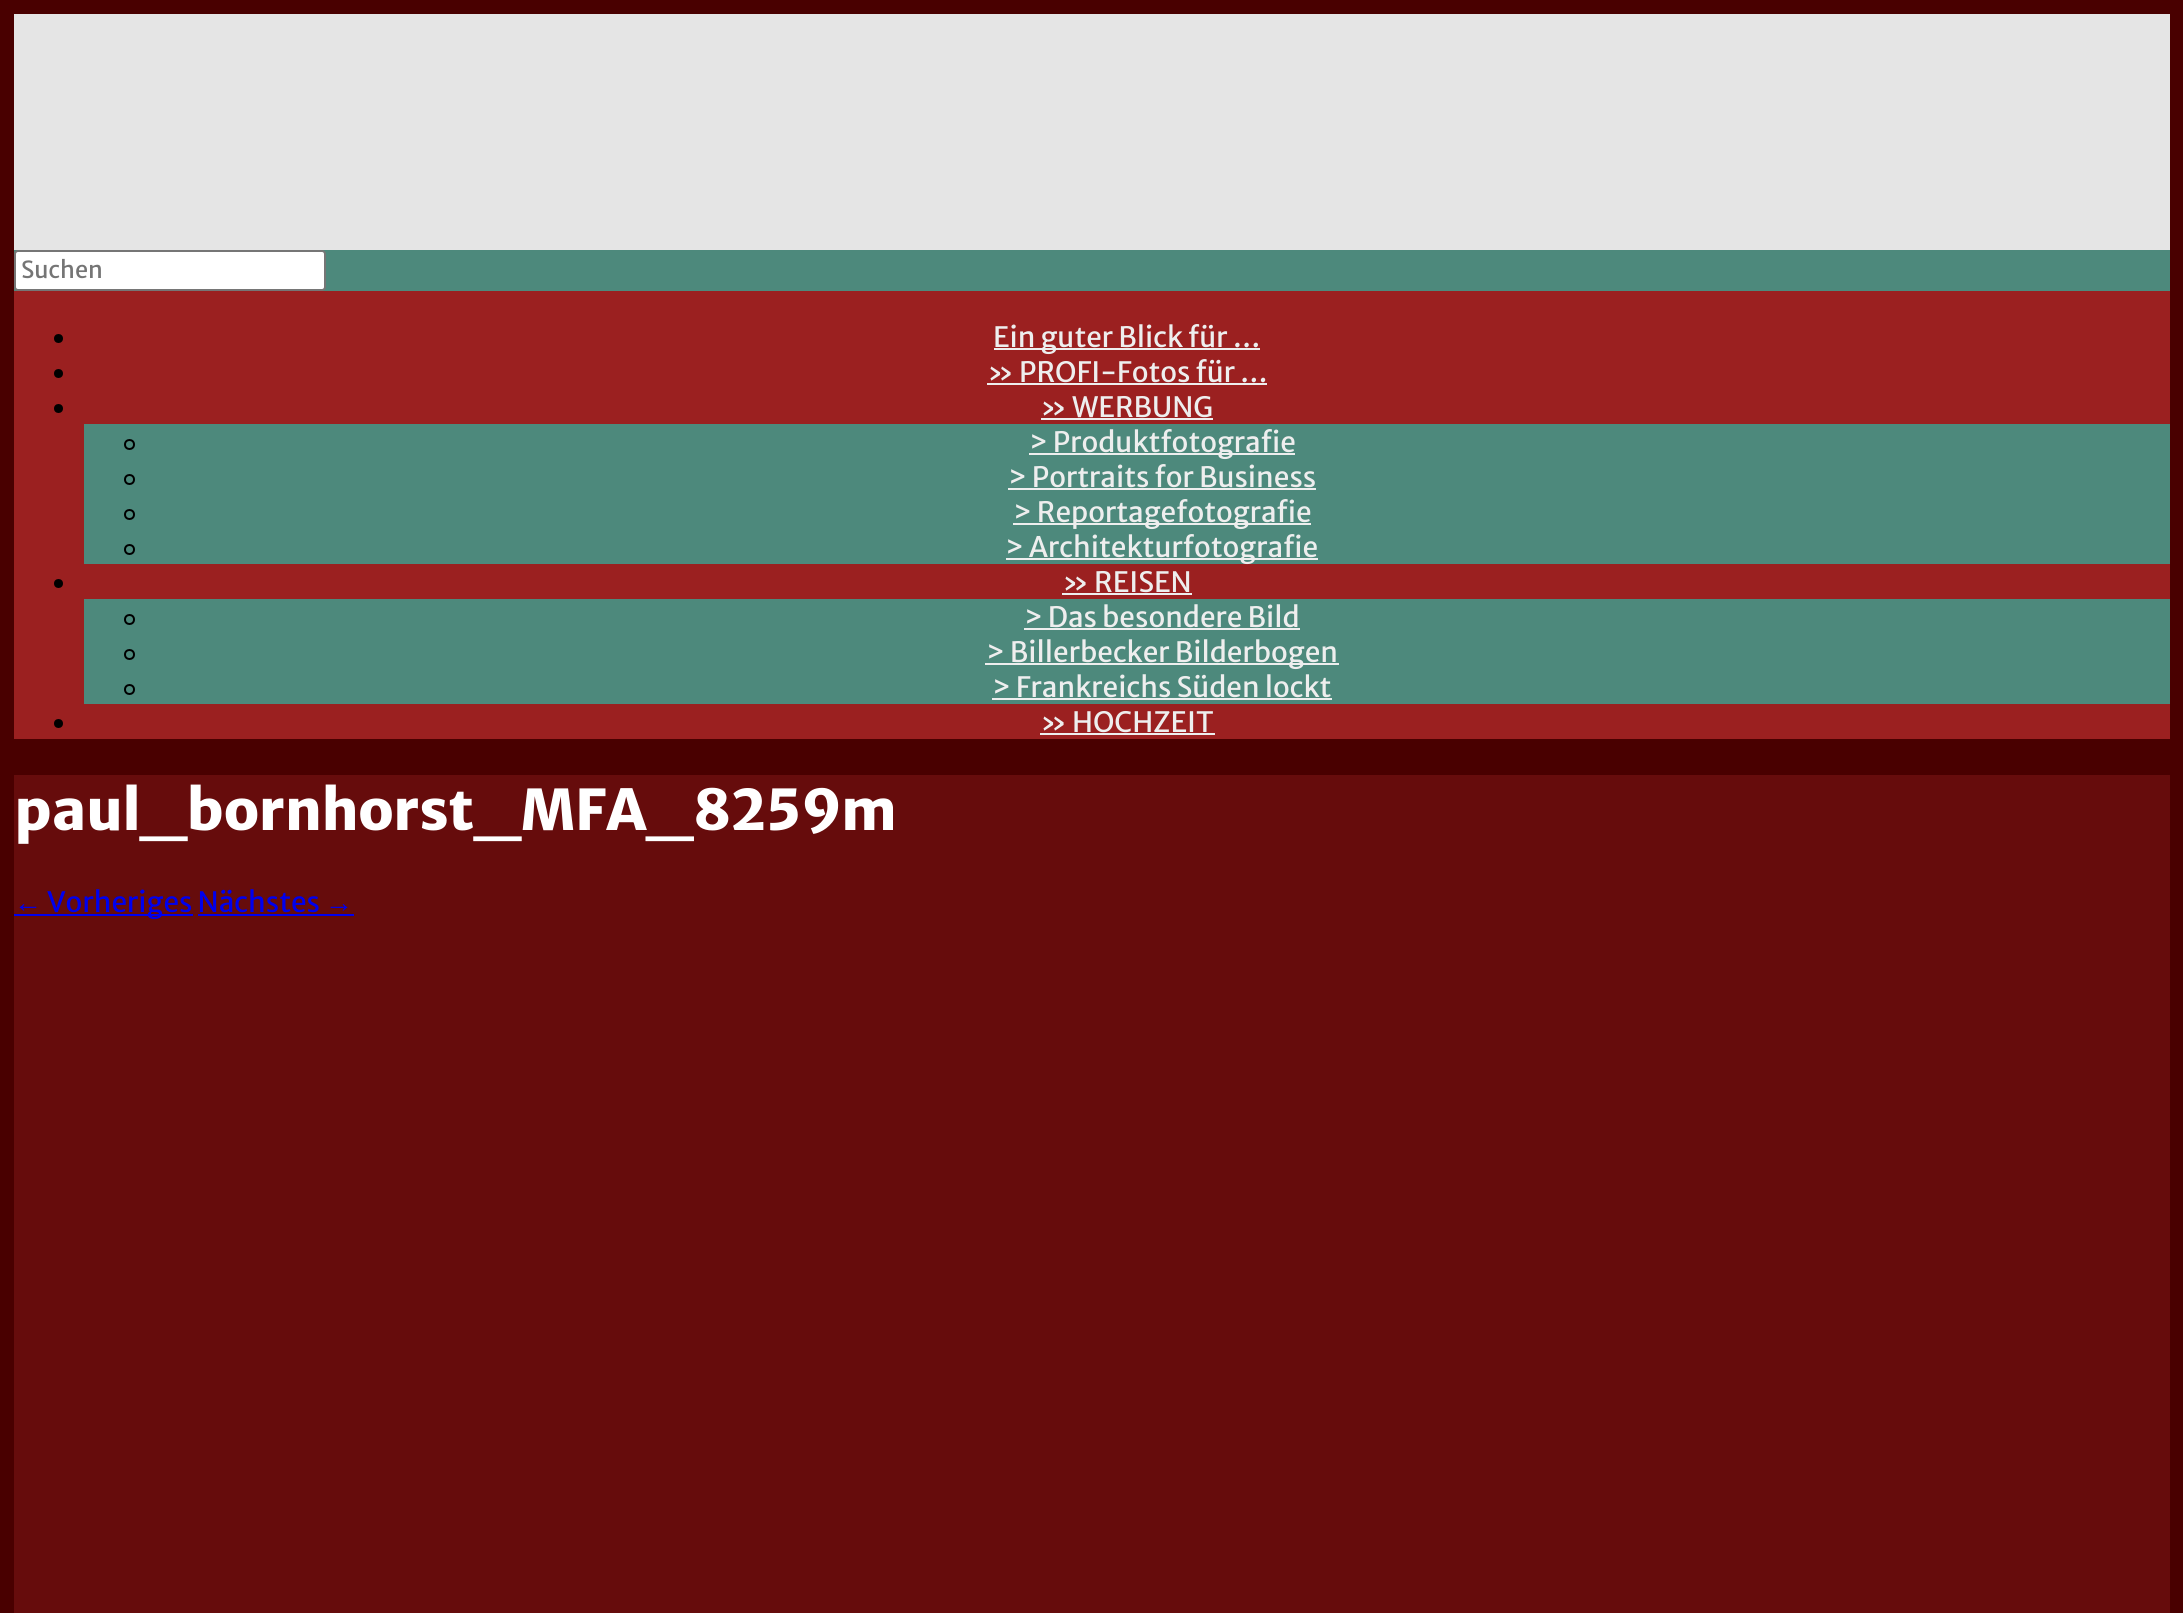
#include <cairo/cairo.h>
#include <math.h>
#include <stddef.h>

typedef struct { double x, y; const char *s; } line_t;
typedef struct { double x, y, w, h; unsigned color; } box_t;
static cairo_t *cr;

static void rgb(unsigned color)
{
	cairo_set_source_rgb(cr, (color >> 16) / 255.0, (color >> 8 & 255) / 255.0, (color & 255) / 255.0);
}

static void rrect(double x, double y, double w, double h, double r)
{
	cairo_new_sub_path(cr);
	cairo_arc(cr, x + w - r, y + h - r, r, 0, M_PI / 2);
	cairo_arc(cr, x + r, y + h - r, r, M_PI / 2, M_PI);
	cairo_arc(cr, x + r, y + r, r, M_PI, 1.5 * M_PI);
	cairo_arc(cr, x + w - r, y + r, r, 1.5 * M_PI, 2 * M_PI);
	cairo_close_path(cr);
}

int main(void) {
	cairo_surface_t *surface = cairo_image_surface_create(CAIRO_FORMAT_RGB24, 2183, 1613);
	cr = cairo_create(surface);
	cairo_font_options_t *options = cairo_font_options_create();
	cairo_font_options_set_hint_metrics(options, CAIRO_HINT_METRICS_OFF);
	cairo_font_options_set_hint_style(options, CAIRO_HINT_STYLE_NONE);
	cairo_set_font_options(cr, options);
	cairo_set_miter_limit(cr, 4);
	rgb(0x490000);
	cairo_paint(cr);
	{
		static const box_t items[] = {
			{14, 14, 2156, 236, 0xe5e5e5},
			{14, 291, 2156, 448, 0x9b2020},
			{14, 250, 2156, 41, 0x4d897c},
		};
		for (size_t i = 0; i < sizeof items / sizeof *items; i++) {
			rgb(items[i].color);
			cairo_rectangle(cr, items[i].x, items[i].y, items[i].w, items[i].h);
			cairo_fill(cr);
		}
	}
	rgb(0xffffff);
	rrect(15, 251, 310, 39, 3);
	cairo_fill_preserve(cr);
	rgb(0x767676);
	cairo_stroke(cr);
	rgb(0x000000);
	cairo_arc(cr, 58.5, 338.5, 4.5, 0, 2 * M_PI);
	cairo_fill(cr);
	rgb(0xeeeeee);
	cairo_rectangle(cr, 994, 348, 266, 2);
	cairo_fill(cr);
	rgb(0x000000);
	cairo_arc(cr, 58.5, 373.5, 4.5, 0, 2 * M_PI);
	cairo_fill(cr);
	rgb(0xeeeeee);
	cairo_rectangle(cr, 987, 383, 280, 2);
	cairo_fill(cr);
	rgb(0x000000);
	cairo_arc(cr, 58.5, 408.5, 4.5, 0, 2 * M_PI);
	cairo_fill(cr);
	rgb(0xeeeeee);
	cairo_rectangle(cr, 1041, 418, 172, 2);
	cairo_fill(cr);
	rgb(0x4d897c);
	cairo_rectangle(cr, 84, 424, 2086, 140);
	cairo_fill(cr);
	cairo_arc(cr, 129.5, 444.5, 4.5, 0, 2 * M_PI);
	rgb(0x000000);
	cairo_stroke(cr);
	rgb(0xeeeeee);
	cairo_rectangle(cr, 1029, 453, 266, 2);
	cairo_fill(cr);
	cairo_arc(cr, 129.5, 479.5, 4.5, 0, 2 * M_PI);
	rgb(0x000000);
	cairo_stroke(cr);
	rgb(0xeeeeee);
	cairo_rectangle(cr, 1008, 488, 308, 2);
	cairo_fill(cr);
	cairo_arc(cr, 129.5, 514.5, 4.5, 0, 2 * M_PI);
	rgb(0x000000);
	cairo_stroke(cr);
	rgb(0xeeeeee);
	cairo_rectangle(cr, 1013, 523, 298, 2);
	cairo_fill(cr);
	cairo_arc(cr, 129.5, 549.5, 4.5, 0, 2 * M_PI);
	rgb(0x000000);
	cairo_stroke(cr);
	rgb(0xeeeeee);
	cairo_rectangle(cr, 1006, 558, 312, 2);
	cairo_fill(cr);
	rgb(0x000000);
	cairo_arc(cr, 58.5, 583.5, 4.5, 0, 2 * M_PI);
	cairo_fill(cr);
	rgb(0xeeeeee);
	cairo_rectangle(cr, 1062, 593, 130, 2);
	cairo_fill(cr);
	rgb(0x4d897c);
	cairo_rectangle(cr, 84, 599, 2086, 105);
	cairo_fill(cr);
	cairo_arc(cr, 129.5, 619.5, 4.5, 0, 2 * M_PI);
	rgb(0x000000);
	cairo_stroke(cr);
	rgb(0xeeeeee);
	cairo_rectangle(cr, 1024, 628, 276, 2);
	cairo_fill(cr);
	cairo_arc(cr, 129.5, 654.5, 4.5, 0, 2 * M_PI);
	rgb(0x000000);
	cairo_stroke(cr);
	rgb(0xeeeeee);
	cairo_rectangle(cr, 985, 663, 354, 2);
	cairo_fill(cr);
	cairo_arc(cr, 129.5, 689.5, 4.5, 0, 2 * M_PI);
	rgb(0x000000);
	cairo_stroke(cr);
	rgb(0xeeeeee);
	cairo_rectangle(cr, 992, 698, 340, 2);
	cairo_fill(cr);
	rgb(0x000000);
	cairo_arc(cr, 58.5, 723.5, 4.5, 0, 2 * M_PI);
	cairo_fill(cr);
	{
		static const box_t items[] = {
			{1040, 733, 175, 2, 0xeeeeee},
			{14, 775, 2156, 838, 0x660c0c},
			{14, 914, 179, 2, 0x0000ee},
			{198, 914, 156, 2, 0x0000ee},
		};
		for (size_t i = 0; i < sizeof items / sizeof *items; i++) {
			rgb(items[i].color);
			cairo_rectangle(cr, items[i].x, items[i].y, items[i].w, items[i].h);
			cairo_fill(cr);
		}
	}
	cairo_select_font_face(cr, "Merriweather Sans", CAIRO_FONT_SLANT_NORMAL, CAIRO_FONT_WEIGHT_NORMAL);
	cairo_set_font_size(cr, 23.5);
	rgb(0x757575);
	cairo_move_to(cr, 21, 278);
	cairo_show_text(cr, "Suchen");
	cairo_set_font_size(cr, 28);
	rgb(0xeeeeee);
	{
		static const line_t items[] = {
			{993, 347, "Ein guter Blick für …"},
			{987, 382, "» PROFI-Fotos für …"},
			{1040, 417, "» WERBUNG"},
			{1029, 452, "> Produktfotografie"},
			{1008, 487, "> Portraits for Business"},
			{1013, 522, "> Reportagefotografie"},
			{1005, 557, "> Architekturfotografie"},
			{1062, 592, "» REISEN"},
			{1024, 627, "> Das besondere Bild"},
			{986, 662, "> Billerbecker Bilderbogen"},
			{992, 697, "> Frankreichs Süden lockt"},
			{1040, 732, "» HOCHZEIT"},
		};
		for (size_t i = 0; i < sizeof items / sizeof *items; i++) {
			cairo_move_to(cr, items[i].x, items[i].y);
			cairo_show_text(cr, items[i].s);
		}
	}
	cairo_select_font_face(cr, "Merriweather Sans ExtraBold", CAIRO_FONT_SLANT_NORMAL, CAIRO_FONT_WEIGHT_NORMAL);
	cairo_set_font_size(cr, 56);
	rgb(0xffffff);
	cairo_move_to(cr, 14, 830);
	cairo_show_text(cr, "paul_bornhorst_MFA_8259m");
	cairo_select_font_face(cr, "Liberation Serif", CAIRO_FONT_SLANT_NORMAL, CAIRO_FONT_WEIGHT_NORMAL);
	cairo_set_font_size(cr, 28);
	rgb(0x0000ee);
	cairo_move_to(cr, 14, 912);
	cairo_show_text(cr, "←");
	cairo_select_font_face(cr, "Merriweather Sans", CAIRO_FONT_SLANT_NORMAL, CAIRO_FONT_WEIGHT_NORMAL);
	cairo_move_to(cr, 47, 912);
	cairo_show_text(cr, "Vorheriges Nächstes");
	cairo_select_font_face(cr, "Liberation Serif", CAIRO_FONT_SLANT_NORMAL, CAIRO_FONT_WEIGHT_NORMAL);
	cairo_move_to(cr, 325, 912);
	cairo_show_text(cr, "→");
	cairo_surface_write_to_png(surface, "page.png");
	cairo_font_options_destroy(options);
	cairo_destroy(cr);
	cairo_surface_destroy(surface);
	return 0;
}
